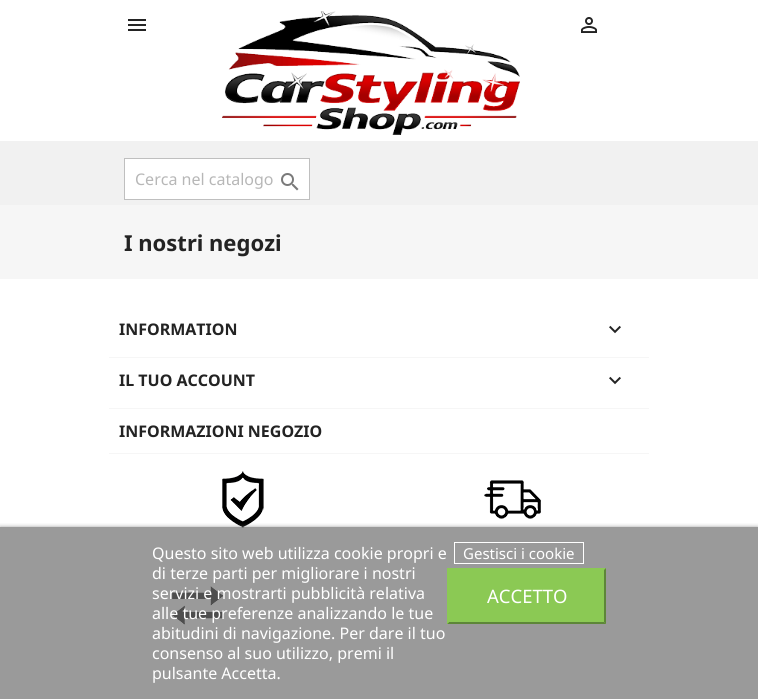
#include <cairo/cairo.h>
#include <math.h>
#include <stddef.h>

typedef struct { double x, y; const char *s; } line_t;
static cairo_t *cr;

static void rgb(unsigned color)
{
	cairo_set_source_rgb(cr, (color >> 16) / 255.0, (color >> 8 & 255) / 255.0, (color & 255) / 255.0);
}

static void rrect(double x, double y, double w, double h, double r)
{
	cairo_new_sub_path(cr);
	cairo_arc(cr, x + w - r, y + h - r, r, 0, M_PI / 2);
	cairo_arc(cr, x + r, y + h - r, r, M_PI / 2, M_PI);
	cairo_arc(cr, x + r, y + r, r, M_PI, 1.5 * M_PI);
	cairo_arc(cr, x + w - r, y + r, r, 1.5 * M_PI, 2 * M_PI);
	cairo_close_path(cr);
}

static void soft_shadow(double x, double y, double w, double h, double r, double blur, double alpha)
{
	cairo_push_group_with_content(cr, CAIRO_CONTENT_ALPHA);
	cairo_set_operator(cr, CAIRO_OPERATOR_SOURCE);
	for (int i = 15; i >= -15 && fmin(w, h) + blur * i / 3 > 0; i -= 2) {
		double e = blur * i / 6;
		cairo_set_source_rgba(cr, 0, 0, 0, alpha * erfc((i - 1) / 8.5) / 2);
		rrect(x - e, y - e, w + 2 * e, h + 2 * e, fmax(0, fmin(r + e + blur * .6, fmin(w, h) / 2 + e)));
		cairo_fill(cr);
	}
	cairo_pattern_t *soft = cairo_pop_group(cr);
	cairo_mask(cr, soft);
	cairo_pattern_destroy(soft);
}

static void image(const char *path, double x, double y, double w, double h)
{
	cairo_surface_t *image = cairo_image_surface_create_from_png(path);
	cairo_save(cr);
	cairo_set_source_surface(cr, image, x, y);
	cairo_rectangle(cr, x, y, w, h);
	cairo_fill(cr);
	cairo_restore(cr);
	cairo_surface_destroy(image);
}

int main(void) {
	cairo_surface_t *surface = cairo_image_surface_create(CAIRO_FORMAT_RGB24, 758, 699);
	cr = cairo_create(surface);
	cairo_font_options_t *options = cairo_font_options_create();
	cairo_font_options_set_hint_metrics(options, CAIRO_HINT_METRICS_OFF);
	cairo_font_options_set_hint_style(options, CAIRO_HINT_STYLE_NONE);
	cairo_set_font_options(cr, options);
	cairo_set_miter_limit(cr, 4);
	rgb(0xffffff);
	cairo_paint(cr);
	rgb(0xf1f1f1);
	cairo_rectangle(cr, 0, 141, 758, 64);
	cairo_fill(cr);
	image("img/1.png", 128, 19, 18, 12);
	image("img/2.png", 222, 11, 298, 124);
	image("img/3.png", 581, 17, 16, 16);
	rgb(0xffffff);
	cairo_rectangle(cr, 124.5, 158.5, 185, 41);
	cairo_fill_preserve(cr);
	rgb(0xbfbfbf);
	cairo_set_line_width(cr, 1);
	cairo_stroke(cr);
	image("img/4.png", 281, 173, 18, 18);
	rgb(0xf6f6f6);
	cairo_rectangle(cr, 0, 205, 758, 74);
	cairo_fill(cr);
	cairo_rectangle(cr, 109, 357, 540, 1);
	cairo_fill(cr);
	image("img/5.png", 609, 325, 12, 9);
	cairo_rectangle(cr, 109, 408, 540, 1);
	cairo_fill(cr);
	image("img/5.png", 609, 376, 12, 9);
	cairo_rectangle(cr, 109, 453, 540, 1);
	cairo_fill(cr);
	image("img/6.png", 222, 471, 42, 57);
	image("img/8.png", 171, 586, 53, 39);
	cairo_save(cr);
	cairo_rectangle(cr, 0, 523, 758, 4);
	cairo_clip(cr);
	rgb(0x707070);
	soft_shadow(0, 528, 758, 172, 0, 2.5, 1);
	cairo_restore(cr);
	cairo_set_source_rgba(cr, 0.439, 0.439, 0.439, 0.7);
	cairo_rectangle(cr, 0, 527, 758, 172);
	cairo_fill(cr);
	cairo_rectangle(cr, 454.5, 542.5, 129, 21);
	rgb(0xffffff);
	cairo_stroke(cr);
	rgb(0x8bc954);
	cairo_rectangle(cr, 447, 568, 159, 56);
	cairo_fill(cr);
	rgb(0x5d8638);
	cairo_new_path(cr);
	cairo_move_to(cr, 606, 568);
	cairo_line_to(cr, 606, 624);
	cairo_line_to(cr, 604, 622);
	cairo_line_to(cr, 604, 570);
	cairo_close_path(cr);
	cairo_fill(cr);
	cairo_new_path(cr);
	cairo_move_to(cr, 606, 624);
	cairo_line_to(cr, 447, 624);
	cairo_line_to(cr, 449, 622);
	cairo_line_to(cr, 604, 622);
	cairo_close_path(cr);
	cairo_fill(cr);
	rgb(0x8bc954);
	cairo_new_path(cr);
	cairo_move_to(cr, 447, 624);
	cairo_line_to(cr, 447, 568);
	cairo_line_to(cr, 449, 570);
	cairo_line_to(cr, 449, 622);
	cairo_close_path(cr);
	cairo_fill(cr);
	image("img/7.png", 484, 480, 57, 39);
	cairo_select_font_face(cr, "Noto Sans", CAIRO_FONT_SLANT_NORMAL, CAIRO_FONT_WEIGHT_NORMAL);
	cairo_set_font_size(cr, 16);
	rgb(0xb7b7b7);
	cairo_move_to(cr, 135, 185);
	cairo_show_text(cr, "Cerca nel catalogo");
	cairo_select_font_face(cr, "Noto Sans", CAIRO_FONT_SLANT_NORMAL, CAIRO_FONT_WEIGHT_BOLD);
	cairo_set_font_size(cr, 22);
	rgb(0x232323);
	cairo_move_to(cr, 124, 251);
	cairo_show_text(cr, "I nostri negozi");
	cairo_set_font_size(cr, 16);
	{
		static const line_t items[] = {
			{119, 335, "INFORMATION"},
			{119, 386, "IL TUO ACCOUNT"},
			{119, 437, "INFORMAZIONI NEGOZIO"},
		};
		for (size_t i = 0; i < sizeof items / sizeof *items; i++) {
			cairo_move_to(cr, items[i].x, items[i].y);
			cairo_show_text(cr, items[i].s);
		}
	}
	cairo_select_font_face(cr, "Noto Sans", CAIRO_FONT_SLANT_NORMAL, CAIRO_FONT_WEIGHT_NORMAL);
	rgb(0xffffff);
	{
		static const line_t items[] = {
			{152, 559, "Questo sito web utilizza cookie propri e"},
			{152, 579, "di terze parti per migliorare i nostri"},
			{152, 599, "servizi e mostrarti pubblicità relativa"},
			{152, 619, "alle tue preferenze analizzando le tue"},
			{152, 639, "abitudini di navigazione. Per dare il tuo"},
			{152, 659, "consenso al suo utilizzo, premi il"},
			{152, 679, "pulsante Accetta."},
		};
		for (size_t i = 0; i < sizeof items / sizeof *items; i++) {
			cairo_move_to(cr, items[i].x, items[i].y);
			cairo_show_text(cr, items[i].s);
		}
	}
	cairo_set_font_size(cr, 15);
	cairo_move_to(cr, 463, 559);
	cairo_show_text(cr, "Gestisci i cookie");
	cairo_set_font_size(cr, 18.5);
	cairo_move_to(cr, 487, 603);
	cairo_show_text(cr, "ACCETTO");
	cairo_surface_write_to_png(surface, "page.png");
	cairo_font_options_destroy(options);
	cairo_destroy(cr);
	cairo_surface_destroy(surface);
	return 0;
}
